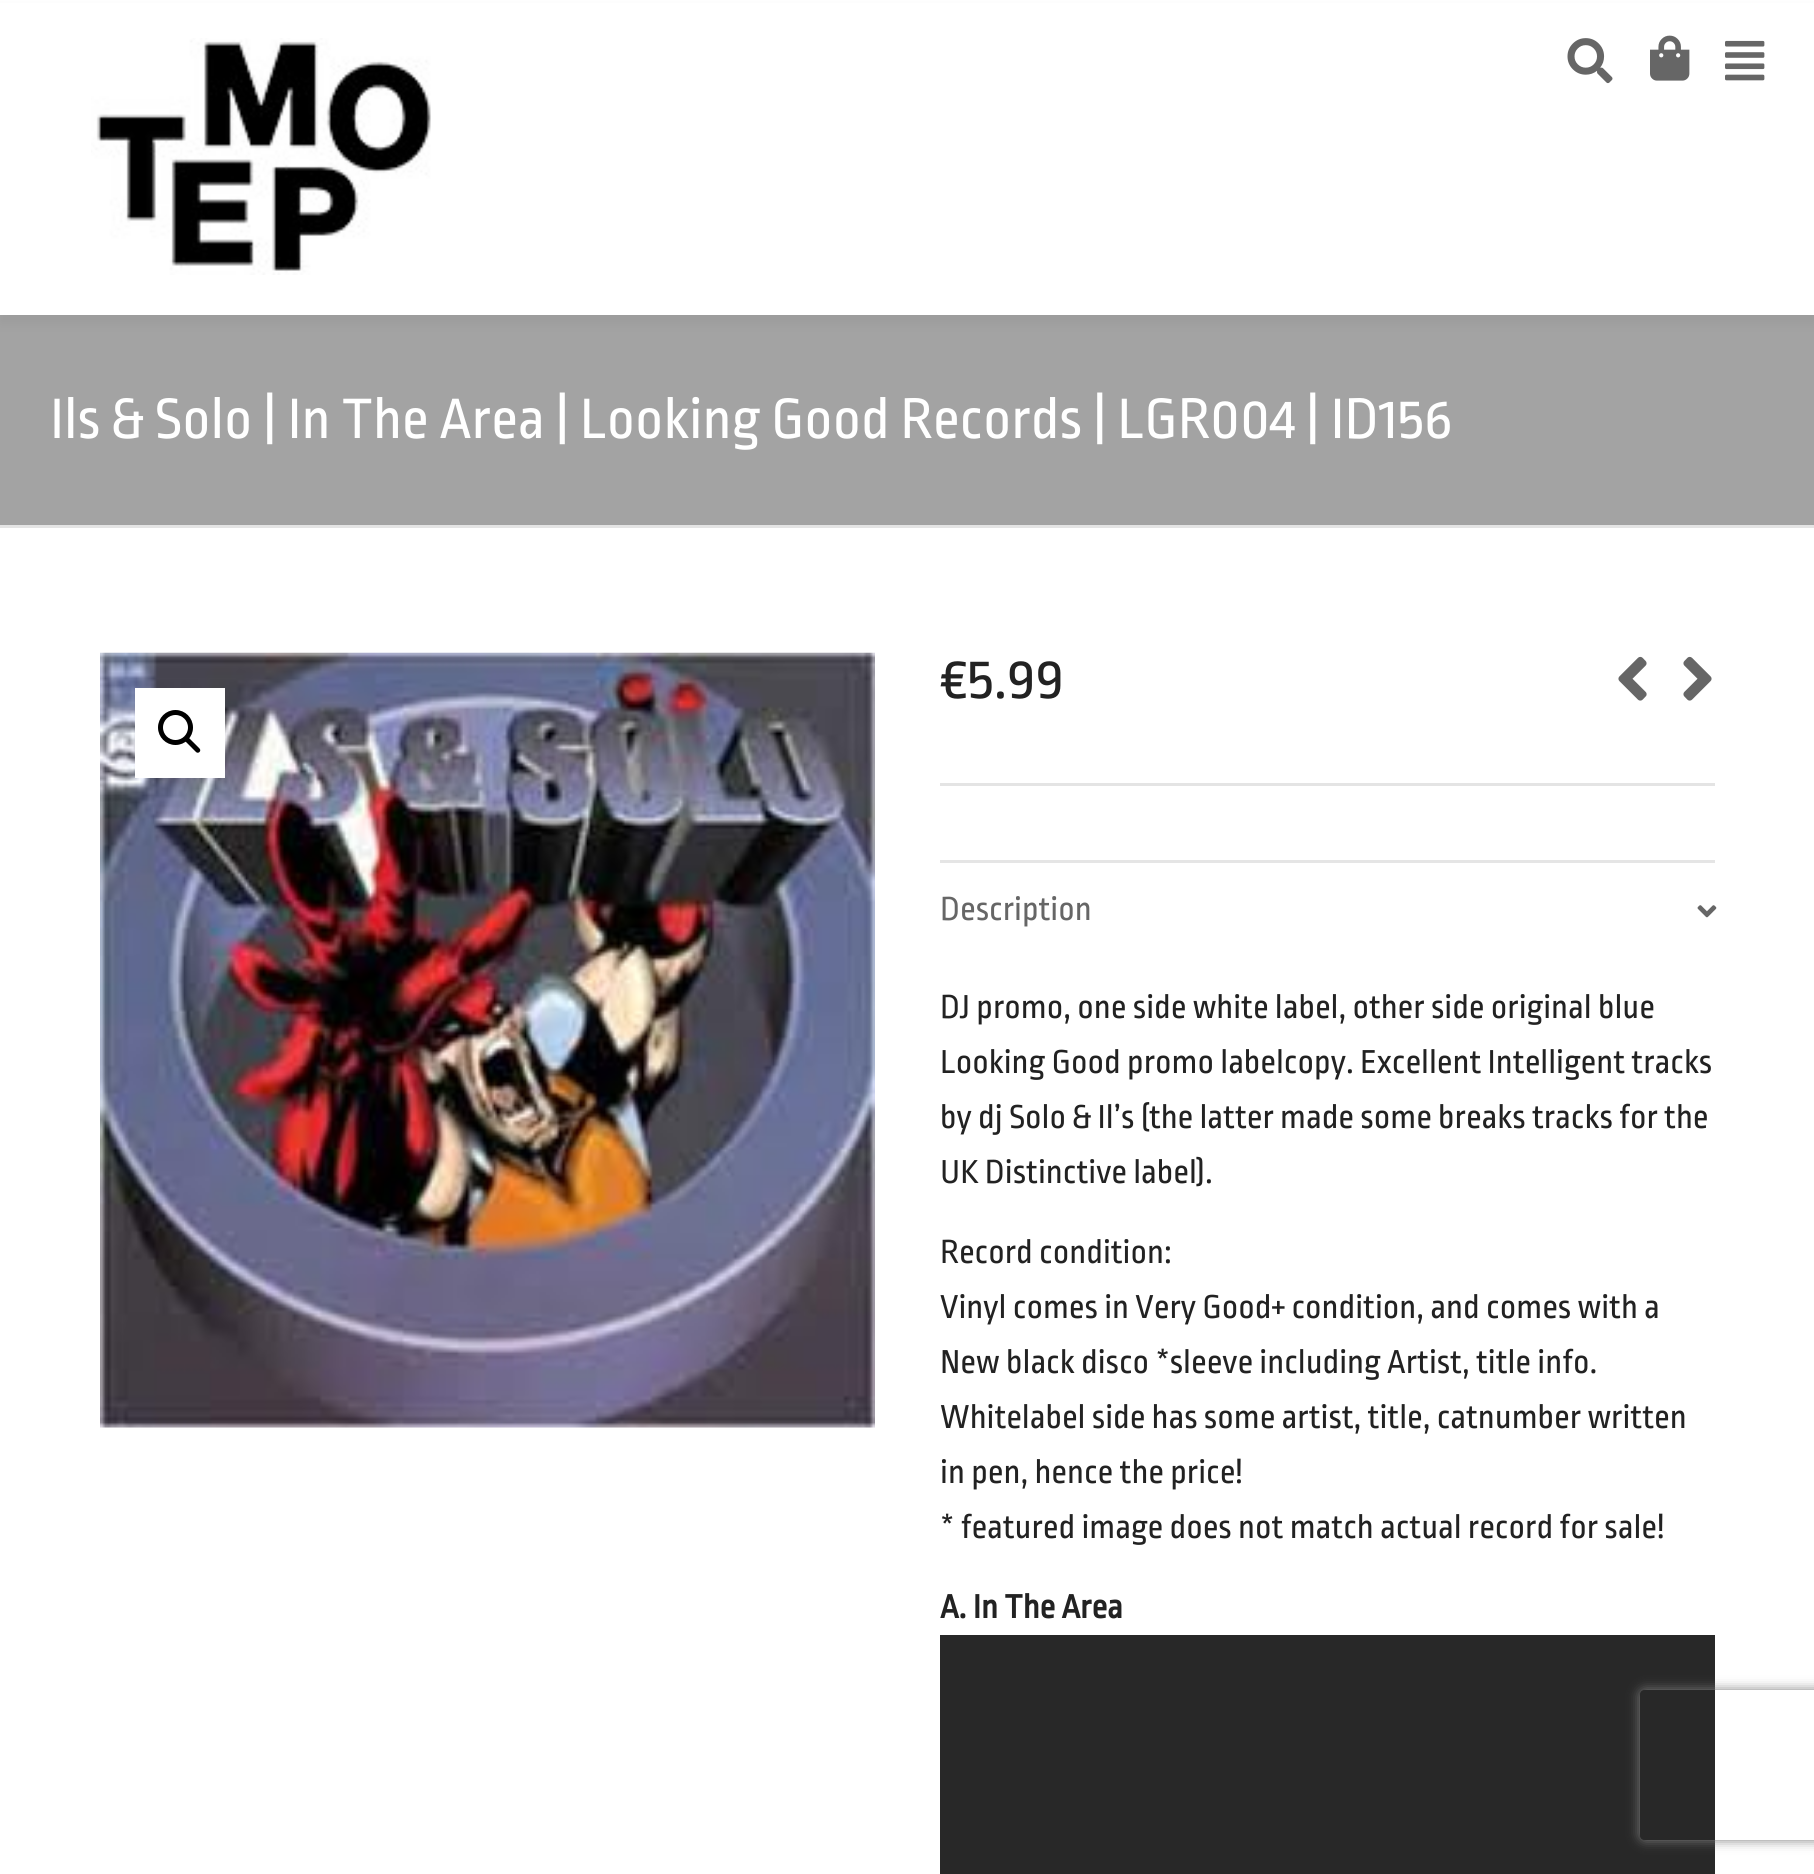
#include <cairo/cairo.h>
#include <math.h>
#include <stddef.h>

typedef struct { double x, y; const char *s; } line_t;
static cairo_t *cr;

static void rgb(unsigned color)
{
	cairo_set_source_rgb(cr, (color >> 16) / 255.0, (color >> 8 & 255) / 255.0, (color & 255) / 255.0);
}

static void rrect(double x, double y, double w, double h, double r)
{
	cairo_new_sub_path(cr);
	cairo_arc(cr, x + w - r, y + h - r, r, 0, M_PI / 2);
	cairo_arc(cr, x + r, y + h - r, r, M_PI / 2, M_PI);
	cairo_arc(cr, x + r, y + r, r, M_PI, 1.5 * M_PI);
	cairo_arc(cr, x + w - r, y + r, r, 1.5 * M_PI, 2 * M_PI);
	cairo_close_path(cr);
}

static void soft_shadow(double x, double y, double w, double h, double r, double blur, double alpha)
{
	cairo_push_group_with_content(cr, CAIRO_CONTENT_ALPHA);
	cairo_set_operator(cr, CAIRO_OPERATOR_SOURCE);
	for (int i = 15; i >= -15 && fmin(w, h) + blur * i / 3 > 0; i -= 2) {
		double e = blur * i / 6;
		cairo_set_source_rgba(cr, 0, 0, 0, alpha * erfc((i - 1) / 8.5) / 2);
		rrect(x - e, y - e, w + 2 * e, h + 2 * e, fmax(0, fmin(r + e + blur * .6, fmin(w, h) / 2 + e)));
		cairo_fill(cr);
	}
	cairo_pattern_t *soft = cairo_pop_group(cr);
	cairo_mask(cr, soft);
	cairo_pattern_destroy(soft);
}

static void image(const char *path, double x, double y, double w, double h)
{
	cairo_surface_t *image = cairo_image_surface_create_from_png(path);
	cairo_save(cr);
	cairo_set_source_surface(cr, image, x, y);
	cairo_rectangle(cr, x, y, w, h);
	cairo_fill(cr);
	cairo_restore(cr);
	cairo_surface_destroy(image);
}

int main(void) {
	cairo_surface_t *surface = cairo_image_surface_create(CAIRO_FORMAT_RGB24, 1814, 1874);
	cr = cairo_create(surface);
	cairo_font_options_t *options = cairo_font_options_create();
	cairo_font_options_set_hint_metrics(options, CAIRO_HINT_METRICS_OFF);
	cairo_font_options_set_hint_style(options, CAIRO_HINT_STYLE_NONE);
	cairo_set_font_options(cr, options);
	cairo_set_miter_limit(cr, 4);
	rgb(0xffffff);
	cairo_paint(cr);
	rgb(0xa3a3a3);
	cairo_rectangle(cr, 0, 315, 1814, 210);
	cairo_fill(cr);
	rgb(0x000000);
	soft_shadow(0, 8, 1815, 315, 0, 6, 0.05);
	rgb(0xffffff);
	cairo_rectangle(cr, 0, 3, 1814, 312);
	cairo_fill(cr);
	image("img/1.png", 91, 38, 340, 237);
	image("img/2.png", 1567, 38, 46, 46);
	image("img/3.png", 1650, 35, 40, 46);
	image("img/4.png", 1725, 40, 40, 41);
	rgb(0xe4e4e4);
	cairo_rectangle(cr, 0, 525, 1814, 3);
	cairo_fill(cr);
	image("img/5.png", 100, 652, 775, 776);
	rgb(0xffffff);
	cairo_rectangle(cr, 135, 688, 90, 90);
	cairo_fill(cr);
	cairo_arc(cr, 175.5, 727.5, 15, 0, 2 * M_PI);
	rgb(0x000000);
	cairo_set_line_width(cr, 5);
	cairo_stroke(cr);
	cairo_new_path(cr);
	cairo_move_to(cr, 185.5, 738);
	cairo_curve_to(cr, 186.5, 737, 188, 737, 189, 738);
	cairo_line_to(cr, 199.5, 748.5);
	cairo_curve_to(cr, 200.5, 749.5, 200.5, 751, 199.5, 752);
	cairo_curve_to(cr, 198.5, 753, 197, 753, 196, 752);
	cairo_line_to(cr, 185.5, 741.5);
	cairo_curve_to(cr, 184.5, 740.5, 184.5, 739, 185.5, 738);
	cairo_close_path(cr);
	cairo_fill(cr);
	rgb(0xe4e4e4);
	cairo_rectangle(cr, 940, 783, 775, 3);
	cairo_fill(cr);
	image("img/6.png", 1618, 656, 29, 45);
	image("img/7.png", 1683, 656, 29, 45);
	rgb(0xe5e5e5);
	cairo_rectangle(cr, 940, 860, 775, 3);
	cairo_fill(cr);
	image("img/8.png", 1697, 905, 20, 13);
	rgb(0x282828);
	cairo_rectangle(cr, 940, 1635, 775, 239);
	cairo_fill(cr);
	cairo_save(cr);
	cairo_set_fill_rule(cr, CAIRO_FILL_RULE_EVEN_ODD);
	cairo_new_path(cr);
	cairo_move_to(cr, 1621, 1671);
	cairo_line_to(cr, 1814, 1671);
	cairo_line_to(cr, 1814, 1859);
	cairo_line_to(cr, 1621, 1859);
	cairo_close_path(cr);
	cairo_move_to(cr, 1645, 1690);
	cairo_line_to(cr, 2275, 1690);
	cairo_curve_to(cr, 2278, 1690, 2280, 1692, 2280, 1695);
	cairo_line_to(cr, 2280, 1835);
	cairo_curve_to(cr, 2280, 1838, 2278, 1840, 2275, 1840);
	cairo_line_to(cr, 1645, 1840);
	cairo_curve_to(cr, 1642, 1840, 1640, 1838, 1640, 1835);
	cairo_line_to(cr, 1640, 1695);
	cairo_curve_to(cr, 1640, 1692, 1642, 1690, 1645, 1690);
	cairo_close_path(cr);
	cairo_clip(cr);
	rgb(0x808080);
	soft_shadow(1640, 1690, 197, 150, 5, 6, 1);
	cairo_restore(cr);
	cairo_select_font_face(cr, "Ropa Sans", CAIRO_FONT_SLANT_NORMAL, CAIRO_FONT_WEIGHT_NORMAL);
	cairo_set_font_size(cr, 60);
	rgb(0xffffff);
	cairo_move_to(cr, 50, 438);
	cairo_show_text(cr, "Ils & Solo | In The Area | Looking Good Records | LGR004 | ID156");
	rgb(0x222222);
	cairo_move_to(cr, 940, 698);
	cairo_show_text(cr, "€5.99");
	cairo_set_font_size(cr, 35);
	rgb(0x666666);
	cairo_move_to(cr, 940, 920);
	cairo_show_text(cr, "Description");
	rgb(0x222222);
	{
		static const line_t items[] = {
			{940, 1018, "DJ promo, one side white label, other side original blue"},
			{940, 1073, "Looking Good promo labelcopy. Excellent Intelligent tracks"},
			{940, 1128, "by dj Solo & Il’s (the latter made some breaks tracks for the"},
			{940, 1183, "UK Distinctive label)."},
			{940, 1263, "Record condition:"},
			{940, 1318, "Vinyl comes in Very Good+ condition, and comes with a"},
			{940, 1373, "New black disco *sleeve including Artist, title info."},
			{940, 1428, "Whitelabel side has some artist, title, catnumber written"},
			{940, 1483, "in pen, hence the price!"},
			{940, 1538, "* featured image does not match actual record for sale!"},
		};
		for (size_t i = 0; i < sizeof items / sizeof *items; i++) {
			cairo_move_to(cr, items[i].x, items[i].y);
			cairo_show_text(cr, items[i].s);
		}
	}
	cairo_select_font_face(cr, "Ropa Sans", CAIRO_FONT_SLANT_NORMAL, CAIRO_FONT_WEIGHT_BOLD);
	cairo_move_to(cr, 940, 1618);
	cairo_show_text(cr, "A. In The Area");
	cairo_surface_write_to_png(surface, "page.png");
	cairo_font_options_destroy(options);
	cairo_destroy(cr);
	cairo_surface_destroy(surface);
	return 0;
}
